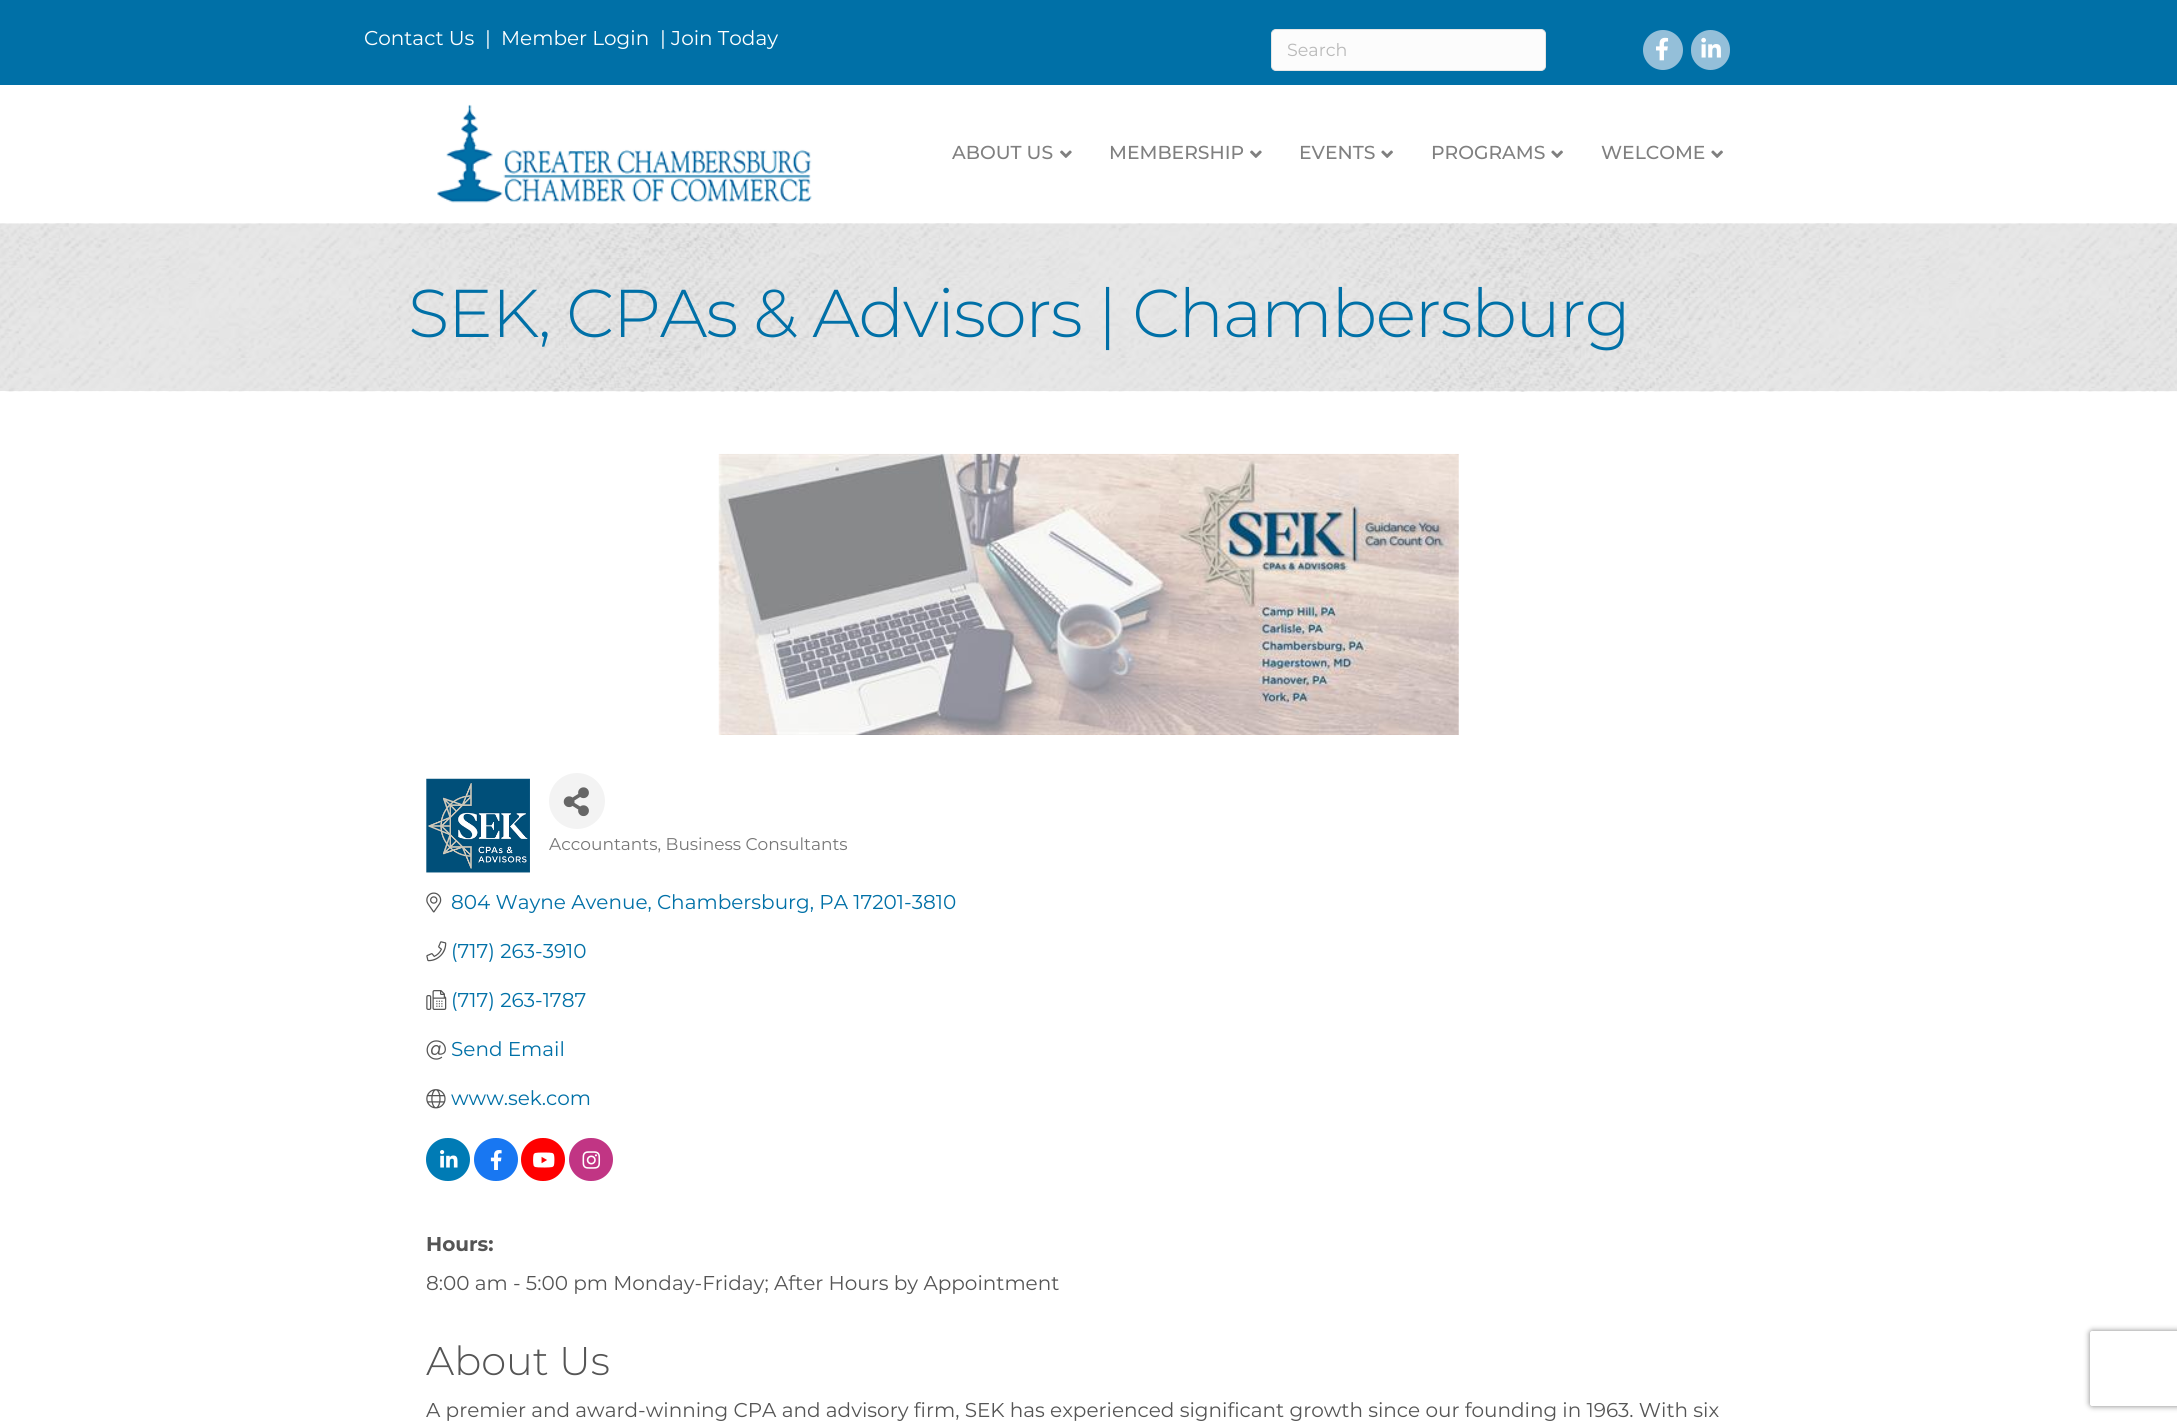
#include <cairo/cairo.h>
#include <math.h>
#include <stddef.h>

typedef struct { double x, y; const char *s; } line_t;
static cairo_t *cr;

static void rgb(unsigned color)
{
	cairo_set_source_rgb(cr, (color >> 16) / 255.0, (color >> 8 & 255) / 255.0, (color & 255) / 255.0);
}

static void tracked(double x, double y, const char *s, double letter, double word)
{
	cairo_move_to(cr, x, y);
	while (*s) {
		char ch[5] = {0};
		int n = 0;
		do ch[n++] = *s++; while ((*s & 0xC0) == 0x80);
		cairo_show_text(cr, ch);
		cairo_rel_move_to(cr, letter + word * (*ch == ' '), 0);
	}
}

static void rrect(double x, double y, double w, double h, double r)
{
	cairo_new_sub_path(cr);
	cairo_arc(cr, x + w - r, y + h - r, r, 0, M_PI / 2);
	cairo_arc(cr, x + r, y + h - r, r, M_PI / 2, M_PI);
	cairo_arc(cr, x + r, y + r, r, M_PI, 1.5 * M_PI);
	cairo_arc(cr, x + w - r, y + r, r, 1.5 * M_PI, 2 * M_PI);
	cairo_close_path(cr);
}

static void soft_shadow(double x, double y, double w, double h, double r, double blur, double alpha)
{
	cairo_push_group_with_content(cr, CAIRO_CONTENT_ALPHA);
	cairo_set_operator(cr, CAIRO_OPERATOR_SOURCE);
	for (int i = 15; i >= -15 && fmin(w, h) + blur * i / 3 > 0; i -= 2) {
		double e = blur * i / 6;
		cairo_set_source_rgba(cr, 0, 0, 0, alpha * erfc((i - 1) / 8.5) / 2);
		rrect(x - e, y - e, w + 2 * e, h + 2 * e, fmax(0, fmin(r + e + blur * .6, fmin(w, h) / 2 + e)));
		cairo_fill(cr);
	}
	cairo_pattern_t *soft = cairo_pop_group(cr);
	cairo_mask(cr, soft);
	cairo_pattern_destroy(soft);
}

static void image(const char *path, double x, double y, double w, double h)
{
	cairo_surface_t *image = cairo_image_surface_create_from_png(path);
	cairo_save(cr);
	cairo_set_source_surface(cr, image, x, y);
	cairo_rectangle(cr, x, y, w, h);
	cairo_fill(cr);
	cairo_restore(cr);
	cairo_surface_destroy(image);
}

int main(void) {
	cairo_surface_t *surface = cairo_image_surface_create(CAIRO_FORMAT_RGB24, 2177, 1423);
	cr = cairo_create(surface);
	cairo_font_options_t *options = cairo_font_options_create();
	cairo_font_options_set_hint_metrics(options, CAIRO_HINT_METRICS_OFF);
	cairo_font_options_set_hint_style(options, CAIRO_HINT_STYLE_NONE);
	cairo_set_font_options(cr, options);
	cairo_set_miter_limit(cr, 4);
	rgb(0xffffff);
	cairo_paint(cr);
	rgb(0x0070a7);
	cairo_rectangle(cr, 0, 0, 2177, 85);
	cairo_fill(cr);
	rgb(0xfcfcfc);
	rrect(1271.5, 29.5, 274, 41, 4.5);
	cairo_fill_preserve(cr);
	rgb(0xe6e6e6);
	cairo_set_line_width(cr, 1);
	cairo_stroke(cr);
	rgb(0x94bfd9);
	cairo_arc(cr, 1663, 50, 20, 0, 2 * M_PI);
	cairo_fill(cr);
	image("img/1.png", 1656, 37, 13, 24);
	rrect(1691, 30, 39, 40, 19.5);
	cairo_fill(cr);
	image("img/2.png", 1701, 37, 20, 21);
	rgb(0xeeeeee);
	cairo_rectangle(cr, 0, 223, 2177, 1);
	cairo_fill(cr);
	image("img/3.png", 437, 104, 375, 99);
	image("img/4.png", 1060, 150, 12, 8);
	image("img/4.png", 1250, 150, 12, 8);
	image("img/5.png", 1381, 150, 12, 8);
	image("img/5.png", 1551, 150, 12, 8);
	image("img/5.png", 1711, 150, 12, 8);
	image("img/6.png", 0, 223, 2177, 169);
	image("img/7.png", 718, 453, 741, 282);
	image("img/8.png", 426, 778, 104, 95);
	rgb(0xf3f3f3);
	cairo_arc(cr, 577, 801, 28, 0, 2 * M_PI);
	cairo_fill(cr);
	image("img/9.png", 563, 787, 26, 30);
	image("img/10.png", 426, 892, 16, 21);
	image("img/11.png", 426, 941, 21, 21);
	image("img/12.png", 426, 990, 21, 20);
	image("img/13.png", 426, 1040, 20, 20);
	image("img/14.png", 426, 1089, 20, 20);
	rgb(0x007bb5);
	rrect(426, 1138, 44, 43, 21.5);
	cairo_fill(cr);
	image("img/15.png", 440, 1150, 18, 18);
	rgb(0x1877f2);
	rrect(474, 1138, 44, 43, 21.5);
	cairo_fill(cr);
	image("img/16.png", 490, 1150, 12, 20);
	rgb(0xff0000);
	rrect(521, 1138, 44, 43, 21.5);
	cairo_fill(cr);
	image("img/17.png", 533, 1152, 22, 16);
	rgb(0xc13584);
	rrect(569, 1138, 44, 43, 21.5);
	cairo_fill(cr);
	image("img/18.png", 582, 1151, 19, 18);
	cairo_save(cr);
	cairo_set_fill_rule(cr, CAIRO_FILL_RULE_EVEN_ODD);
	cairo_new_path(cr);
	cairo_move_to(cr, 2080, 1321);
	cairo_line_to(cr, 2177, 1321);
	cairo_line_to(cr, 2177, 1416);
	cairo_line_to(cr, 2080, 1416);
	cairo_close_path(cr);
	cairo_move_to(cr, 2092.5, 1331);
	cairo_line_to(cr, 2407.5, 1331);
	cairo_curve_to(cr, 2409, 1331, 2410, 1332, 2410, 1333.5);
	cairo_line_to(cr, 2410, 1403.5);
	cairo_curve_to(cr, 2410, 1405, 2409, 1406, 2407.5, 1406);
	cairo_line_to(cr, 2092.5, 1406);
	cairo_curve_to(cr, 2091, 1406, 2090, 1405, 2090, 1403.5);
	cairo_line_to(cr, 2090, 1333.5);
	cairo_curve_to(cr, 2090, 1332, 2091, 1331, 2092.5, 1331);
	cairo_close_path(cr);
	cairo_clip(cr);
	rgb(0x808080);
	soft_shadow(2090, 1331, 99, 75, 2.5, 3, 1);
	cairo_restore(cr);
	cairo_select_font_face(cr, "Montserrat", CAIRO_FONT_SLANT_NORMAL, CAIRO_FONT_WEIGHT_NORMAL);
	cairo_set_font_size(cr, 20);
	rgb(0xffffff);
	{
		static const line_t items[] = {
			{364, 45, "Contact Us"},
			{485, 45, "|"},
			{501, 45, "Member Login"},
			{660, 45, "| Join Today"},
		};
		for (size_t i = 0; i < sizeof items / sizeof *items; i++) {
			cairo_move_to(cr, items[i].x, items[i].y);
			cairo_show_text(cr, items[i].s);
		}
	}
	cairo_set_font_size(cr, 17.5);
	rgb(0xb9b9b9);
	cairo_move_to(cr, 1287, 56);
	cairo_show_text(cr, "Search");
	cairo_select_font_face(cr, "Montserrat Medium", CAIRO_FONT_SLANT_NORMAL, CAIRO_FONT_WEIGHT_NORMAL);
	cairo_set_font_size(cr, 18.75);
	rgb(0x808080);
	{
		static const line_t items[] = {
			{952, 159, "ABOUT US"},
			{1109, 159, "MEMBERSHIP"},
			{1299, 159, "EVENTS"},
			{1431, 159, "PROGRAMS"},
			{1601, 159, "WELCOME"},
		};
		for (size_t i = 0; i < sizeof items / sizeof *items; i++) {
			cairo_move_to(cr, items[i].x, items[i].y);
			cairo_show_text(cr, items[i].s);
		}
	}
	cairo_select_font_face(cr, "Montserrat Light", CAIRO_FONT_SLANT_NORMAL, CAIRO_FONT_WEIGHT_NORMAL);
	cairo_set_font_size(cr, 67.5);
	rgb(0x0070a7);
	tracked(408, 337, "SEK, CPAs & Advisors | Chambersburg", -1.25, 0);
	cairo_select_font_face(cr, "Montserrat", CAIRO_FONT_SLANT_NORMAL, CAIRO_FONT_WEIGHT_NORMAL);
	cairo_set_font_size(cr, 17);
	rgb(0x777777);
	cairo_move_to(cr, 549, 850);
	cairo_show_text(cr, "Accountants, Business Consultants");
	cairo_set_font_size(cr, 20);
	rgb(0x0070a7);
	{
		static const line_t items[] = {
			{451, 909, "804 Wayne Avenue, Chambersburg, PA 17201-3810"},
			{451, 958, "(717) 263-3910"},
			{451, 1007, "(717) 263-1787"},
			{451, 1056, "Send Email"},
			{451, 1105, "www.sek.com"},
		};
		for (size_t i = 0; i < sizeof items / sizeof *items; i++) {
			cairo_move_to(cr, items[i].x, items[i].y);
			cairo_show_text(cr, items[i].s);
		}
	}
	cairo_select_font_face(cr, "Montserrat", CAIRO_FONT_SLANT_NORMAL, CAIRO_FONT_WEIGHT_BOLD);
	rgb(0x555555);
	cairo_move_to(cr, 426, 1251);
	cairo_show_text(cr, "Hours:");
	cairo_select_font_face(cr, "Montserrat", CAIRO_FONT_SLANT_NORMAL, CAIRO_FONT_WEIGHT_NORMAL);
	cairo_move_to(cr, 426, 1290);
	cairo_show_text(cr, "8:00 am - 5:00 pm Monday-Friday; After Hours by Appointment");
	cairo_select_font_face(cr, "Montserrat Light", CAIRO_FONT_SLANT_NORMAL, CAIRO_FONT_WEIGHT_NORMAL);
	cairo_set_font_size(cr, 40);
	cairo_move_to(cr, 426, 1375);
	cairo_show_text(cr, "About Us");
	cairo_select_font_face(cr, "Montserrat", CAIRO_FONT_SLANT_NORMAL, CAIRO_FONT_WEIGHT_NORMAL);
	cairo_set_font_size(cr, 20);
	cairo_move_to(cr, 426, 1417);
	cairo_show_text(cr, "A premier and award-winning CPA and advisory firm, SEK has experienced significant growth since our founding in 1963. With six");
	cairo_surface_write_to_png(surface, "page.png");
	cairo_font_options_destroy(options);
	cairo_destroy(cr);
	cairo_surface_destroy(surface);
	return 0;
}
